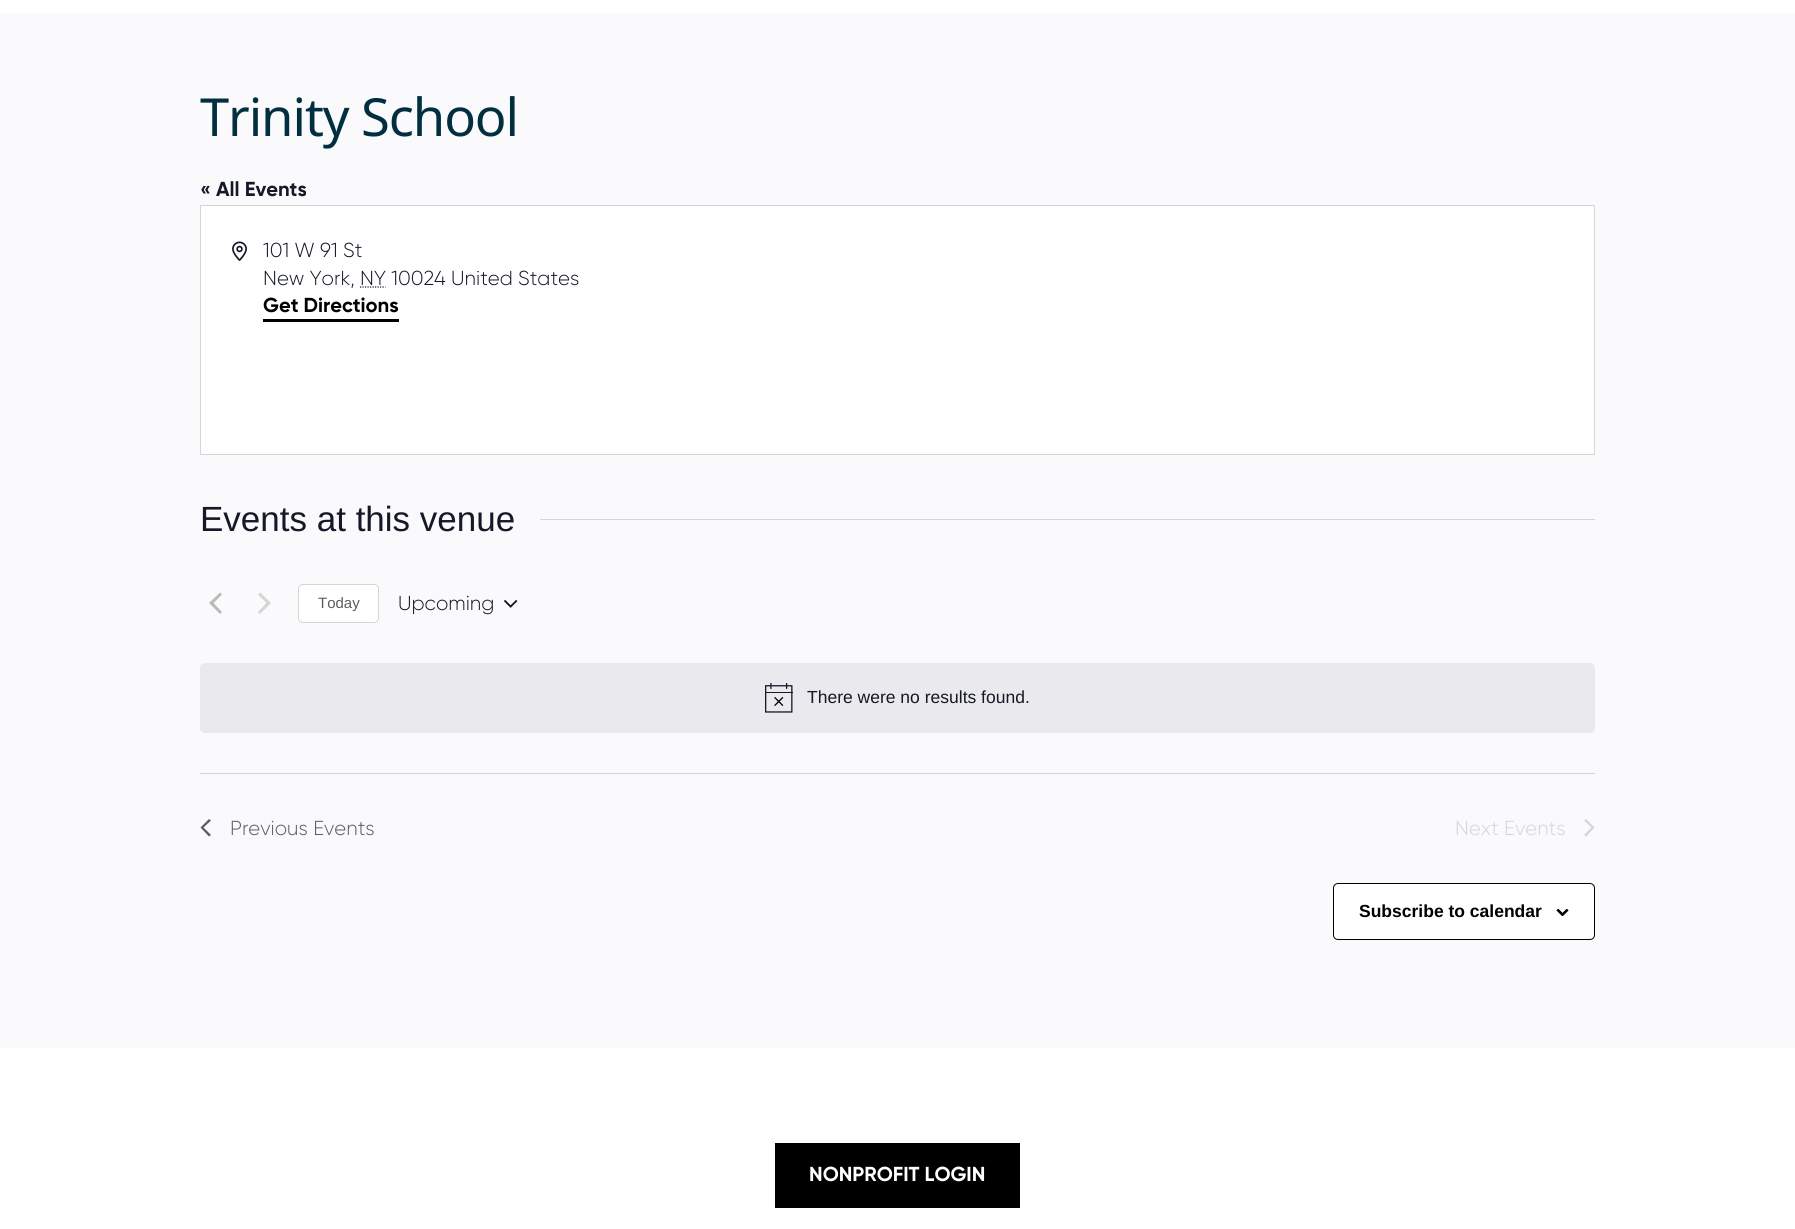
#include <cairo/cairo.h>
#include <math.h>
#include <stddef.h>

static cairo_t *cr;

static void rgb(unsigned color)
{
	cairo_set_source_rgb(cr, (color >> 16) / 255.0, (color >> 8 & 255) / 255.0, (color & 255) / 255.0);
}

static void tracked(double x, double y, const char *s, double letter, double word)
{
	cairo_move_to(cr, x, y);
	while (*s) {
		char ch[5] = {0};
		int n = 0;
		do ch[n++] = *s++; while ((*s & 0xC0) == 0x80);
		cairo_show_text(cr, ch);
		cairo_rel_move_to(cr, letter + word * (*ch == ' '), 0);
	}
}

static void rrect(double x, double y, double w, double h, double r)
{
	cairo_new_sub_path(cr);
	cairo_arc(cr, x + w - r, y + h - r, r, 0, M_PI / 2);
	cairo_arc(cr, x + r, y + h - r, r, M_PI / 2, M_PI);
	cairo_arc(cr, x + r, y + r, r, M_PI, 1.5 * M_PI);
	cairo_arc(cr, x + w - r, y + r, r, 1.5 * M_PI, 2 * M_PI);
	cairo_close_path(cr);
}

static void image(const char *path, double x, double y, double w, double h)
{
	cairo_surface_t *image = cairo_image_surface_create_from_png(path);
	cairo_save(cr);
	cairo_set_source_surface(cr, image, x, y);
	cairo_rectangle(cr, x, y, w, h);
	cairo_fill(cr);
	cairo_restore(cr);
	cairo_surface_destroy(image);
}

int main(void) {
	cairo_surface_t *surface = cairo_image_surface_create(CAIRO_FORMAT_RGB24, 1795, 1229);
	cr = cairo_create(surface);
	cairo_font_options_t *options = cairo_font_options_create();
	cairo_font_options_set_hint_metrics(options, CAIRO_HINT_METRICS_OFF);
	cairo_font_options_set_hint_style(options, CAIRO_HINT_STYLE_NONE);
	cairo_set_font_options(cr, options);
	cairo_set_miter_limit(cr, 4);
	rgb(0xfaf9fc);
	cairo_paint(cr);
	rgb(0xffffff);
	cairo_rectangle(cr, 0, 0, 1795, 13);
	cairo_fill(cr);
	cairo_rectangle(cr, 200.5, 205.5, 1394, 249);
	cairo_fill_preserve(cr);
	rgb(0xd5d5d5);
	cairo_set_line_width(cr, 1);
	cairo_stroke(cr);
	image("img/1.png", 232, 241, 15, 20);
	cairo_new_path(cr);
	cairo_move_to(cr, 360, 287);
	cairo_line_to(cr, 385.5, 287);
	rgb(0x141827);
	cairo_set_line_width(cr, 1.2);
	cairo_set_dash(cr, (double[]){1.25, 1.25}, 2, 0);
	cairo_stroke(cr);
	rgb(0x000000);
	cairo_rectangle(cr, 263, 319, 136, 3);
	cairo_fill(cr);
	rgb(0xd5d5d5);
	cairo_rectangle(cr, 540, 519, 1055, 1);
	cairo_fill(cr);
	rgb(0xbababa);
	cairo_new_path(cr);
	cairo_move_to(cr, 222, 612);
	cairo_line_to(cr, 220, 614);
	cairo_line_to(cr, 209, 603);
	cairo_line_to(cr, 220, 592.5);
	cairo_line_to(cr, 222, 594.5);
	cairo_line_to(cr, 213.5, 603);
	cairo_close_path(cr);
	cairo_fill(cr);
	rgb(0xd5d5d5);
	cairo_new_path(cr);
	cairo_move_to(cr, 258, 594.5);
	cairo_line_to(cr, 260, 592.5);
	cairo_line_to(cr, 271, 603);
	cairo_line_to(cr, 260, 614);
	cairo_line_to(cr, 258, 612);
	cairo_line_to(cr, 266.5, 603);
	cairo_close_path(cr);
	cairo_fill(cr);
	rgb(0xffffff);
	rrect(298.5, 584.5, 80, 38, 4.5);
	cairo_fill_preserve(cr);
	rgb(0xd5d5d5);
	cairo_set_line_width(cr, 1);
	cairo_set_dash(cr, NULL, 0, 0);
	cairo_stroke(cr);
	image("img/2.png", 504, 599, 14, 9);
	rgb(0xeae9ed);
	rrect(200, 663, 1395, 70, 5);
	cairo_fill(cr);
	image("img/3.png", 765, 683, 28, 30);
	rgb(0xd5d5d5);
	cairo_rectangle(cr, 200, 773, 1395, 1);
	cairo_fill(cr);
	rgb(0x5d5d5d);
	cairo_new_path(cr);
	cairo_move_to(cr, 211, 835);
	cairo_line_to(cr, 209, 836.5);
	cairo_line_to(cr, 200.5, 827.5);
	cairo_line_to(cr, 209, 819);
	cairo_line_to(cr, 211, 820.5);
	cairo_line_to(cr, 203.5, 827.5);
	cairo_close_path(cr);
	cairo_fill(cr);
	rgb(0xd5d5d5);
	cairo_new_path(cr);
	cairo_move_to(cr, 1584, 820.5);
	cairo_line_to(cr, 1586, 819);
	cairo_line_to(cr, 1594.5, 827.5);
	cairo_line_to(cr, 1586, 836.5);
	cairo_line_to(cr, 1584, 835);
	cairo_line_to(cr, 1591.5, 827.5);
	cairo_close_path(cr);
	cairo_fill(cr);
	rgb(0xffffff);
	rrect(1333.5, 883.5, 261, 56, 4.5);
	cairo_fill_preserve(cr);
	rgb(0x000000);
	cairo_stroke(cr);
	image("img/4.png", 1556, 909, 13, 7);
	rgb(0xffffff);
	cairo_rectangle(cr, 0, 1048, 1795, 181);
	cairo_fill(cr);
	rgb(0x000000);
	cairo_rectangle(cr, 775, 1143, 245, 65);
	cairo_fill(cr);
	cairo_select_font_face(cr, "Noto Sans", CAIRO_FONT_SLANT_NORMAL, CAIRO_FONT_WEIGHT_NORMAL);
	cairo_set_font_size(cr, 52.5);
	rgb(0x022f40);
	tracked(200, 136, "Trinity School", -1.1, 0);
	cairo_select_font_face(cr, "Gilroy", CAIRO_FONT_SLANT_NORMAL, CAIRO_FONT_WEIGHT_BOLD);
	cairo_set_font_size(cr, 20.25);
	rgb(0x141827);
	cairo_move_to(cr, 200, 196);
	cairo_show_text(cr, "« All Events");
	cairo_select_font_face(cr, "Gilroy Light", CAIRO_FONT_SLANT_NORMAL, CAIRO_FONT_WEIGHT_NORMAL);
	cairo_move_to(cr, 263, 257);
	cairo_show_text(cr, "101 W 91 St");
	cairo_move_to(cr, 263, 285);
	cairo_show_text(cr, "New York, NY 10024 United States");
	cairo_select_font_face(cr, "Gilroy", CAIRO_FONT_SLANT_NORMAL, CAIRO_FONT_WEIGHT_BOLD);
	rgb(0x000000);
	cairo_move_to(cr, 263, 312);
	cairo_show_text(cr, "Get Directions");
	cairo_select_font_face(cr, "Liberation Sans", CAIRO_FONT_SLANT_NORMAL, CAIRO_FONT_WEIGHT_NORMAL);
	cairo_set_font_size(cr, 35);
	rgb(0x141827);
	cairo_move_to(cr, 200, 531);
	cairo_show_text(cr, "Events at this venue");
	cairo_set_font_size(cr, 15);
	rgb(0x5d5d5d);
	cairo_move_to(cr, 318, 608);
	cairo_show_text(cr, "Today");
	cairo_select_font_face(cr, "Gilroy Light", CAIRO_FONT_SLANT_NORMAL, CAIRO_FONT_WEIGHT_NORMAL);
	cairo_set_font_size(cr, 20.25);
	rgb(0x141827);
	cairo_move_to(cr, 398, 610);
	cairo_show_text(cr, "Upcoming");
	cairo_select_font_face(cr, "Liberation Sans", CAIRO_FONT_SLANT_NORMAL, CAIRO_FONT_WEIGHT_NORMAL);
	cairo_set_font_size(cr, 17.5);
	cairo_move_to(cr, 807, 703);
	cairo_show_text(cr, "There were no results found.");
	cairo_select_font_face(cr, "Gilroy Light", CAIRO_FONT_SLANT_NORMAL, CAIRO_FONT_WEIGHT_NORMAL);
	cairo_set_font_size(cr, 20.25);
	rgb(0x5d5d5d);
	cairo_move_to(cr, 230, 835);
	cairo_show_text(cr, "Previous Events");
	rgb(0xd5d5d5);
	cairo_move_to(cr, 1455, 835);
	cairo_show_text(cr, "Next Events");
	cairo_select_font_face(cr, "Liberation Sans", CAIRO_FONT_SLANT_NORMAL, CAIRO_FONT_WEIGHT_BOLD);
	cairo_set_font_size(cr, 17.5);
	rgb(0x000000);
	cairo_move_to(cr, 1359, 917);
	cairo_show_text(cr, "Subscribe to calendar");
	cairo_select_font_face(cr, "Gilroy", CAIRO_FONT_SLANT_NORMAL, CAIRO_FONT_WEIGHT_BOLD);
	cairo_set_font_size(cr, 20.25);
	rgb(0xffffff);
	cairo_move_to(cr, 809, 1181);
	cairo_show_text(cr, "NONPROFIT LOGIN");
	cairo_surface_write_to_png(surface, "page.png");
	cairo_font_options_destroy(options);
	cairo_destroy(cr);
	cairo_surface_destroy(surface);
	return 0;
}
